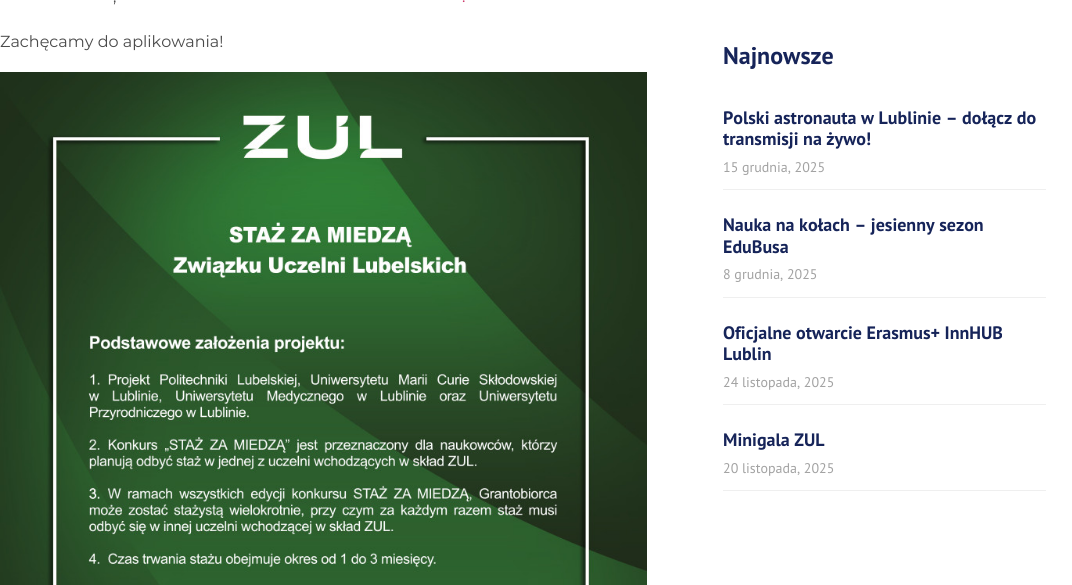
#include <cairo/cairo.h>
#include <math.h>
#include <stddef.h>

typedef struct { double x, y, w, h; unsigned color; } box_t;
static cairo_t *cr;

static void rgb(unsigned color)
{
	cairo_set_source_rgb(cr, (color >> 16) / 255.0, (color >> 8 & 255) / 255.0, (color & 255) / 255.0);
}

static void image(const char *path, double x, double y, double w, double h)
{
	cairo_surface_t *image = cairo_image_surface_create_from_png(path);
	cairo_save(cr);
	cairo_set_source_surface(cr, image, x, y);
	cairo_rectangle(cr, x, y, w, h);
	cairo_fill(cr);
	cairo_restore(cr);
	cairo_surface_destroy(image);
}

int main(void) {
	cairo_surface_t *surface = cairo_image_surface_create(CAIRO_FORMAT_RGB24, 1072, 585);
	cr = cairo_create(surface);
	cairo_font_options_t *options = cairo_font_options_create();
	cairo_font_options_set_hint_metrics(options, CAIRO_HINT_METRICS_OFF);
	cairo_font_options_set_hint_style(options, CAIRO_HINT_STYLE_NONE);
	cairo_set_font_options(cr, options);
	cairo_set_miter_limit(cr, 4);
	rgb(0xffffff);
	cairo_paint(cr);
	image("img/1.png", 0, 72, 647, 513);
	{
		static const box_t items[] = {
			{723, 189, 323, 1, 0xefefef},
			{723, 297, 323, 1, 0xefefef},
			{723, 404, 323, 1, 0xefefef},
			{723, 490, 323, 1, 0xefefef},
		};
		for (size_t i = 0; i < sizeof items / sizeof *items; i++) {
			rgb(items[i].color);
			cairo_rectangle(cr, items[i].x, items[i].y, items[i].w, items[i].h);
			cairo_fill(cr);
		}
	}
	cairo_select_font_face(cr, "Montserrat", CAIRO_FONT_SLANT_NORMAL, CAIRO_FONT_WEIGHT_NORMAL);
	cairo_set_font_size(cr, 16);
	rgb(0x4a4a4a);
	cairo_move_to(cr, 113, 2);
	cairo_show_text(cr, ",");
	rgb(0xcc3366);
	cairo_move_to(cr, 462, 2);
	cairo_show_text(cr, ".");
	rgb(0x4a4a4a);
	cairo_move_to(cr, 0, 47);
	cairo_show_text(cr, "Zachęcamy do aplikowania!");
	cairo_select_font_face(cr, "PT Sans", CAIRO_FONT_SLANT_NORMAL, CAIRO_FONT_WEIGHT_BOLD);
	cairo_set_font_size(cr, 24);
	rgb(0x162459);
	cairo_move_to(cr, 723, 64);
	cairo_show_text(cr, "Najnowsze");
	cairo_set_font_size(cr, 18);
	cairo_move_to(cr, 723, 124);
	cairo_show_text(cr, "Polski astronauta w Lublinie – dołącz do");
	cairo_move_to(cr, 723, 145);
	cairo_show_text(cr, "transmisji na żywo!");
	cairo_select_font_face(cr, "PT Sans", CAIRO_FONT_SLANT_NORMAL, CAIRO_FONT_WEIGHT_NORMAL);
	cairo_set_font_size(cr, 14);
	rgb(0xa2a2a2);
	cairo_move_to(cr, 723, 172);
	cairo_show_text(cr, "15 grudnia, 2025");
	cairo_select_font_face(cr, "PT Sans", CAIRO_FONT_SLANT_NORMAL, CAIRO_FONT_WEIGHT_BOLD);
	cairo_set_font_size(cr, 18);
	rgb(0x162459);
	cairo_move_to(cr, 723, 231);
	cairo_show_text(cr, "Nauka na kołach – jesienny sezon");
	cairo_move_to(cr, 723, 253);
	cairo_show_text(cr, "EduBusa");
	cairo_select_font_face(cr, "PT Sans", CAIRO_FONT_SLANT_NORMAL, CAIRO_FONT_WEIGHT_NORMAL);
	cairo_set_font_size(cr, 14);
	rgb(0xa2a2a2);
	cairo_move_to(cr, 723, 279);
	cairo_show_text(cr, "8 grudnia, 2025");
	cairo_select_font_face(cr, "PT Sans", CAIRO_FONT_SLANT_NORMAL, CAIRO_FONT_WEIGHT_BOLD);
	cairo_set_font_size(cr, 18);
	rgb(0x162459);
	cairo_move_to(cr, 723, 339);
	cairo_show_text(cr, "Oficjalne otwarcie Erasmus+ InnHUB");
	cairo_move_to(cr, 723, 360);
	cairo_show_text(cr, "Lublin");
	cairo_select_font_face(cr, "PT Sans", CAIRO_FONT_SLANT_NORMAL, CAIRO_FONT_WEIGHT_NORMAL);
	cairo_set_font_size(cr, 14);
	rgb(0xa2a2a2);
	cairo_move_to(cr, 723, 387);
	cairo_show_text(cr, "24 listopada, 2025");
	cairo_select_font_face(cr, "PT Sans", CAIRO_FONT_SLANT_NORMAL, CAIRO_FONT_WEIGHT_BOLD);
	cairo_set_font_size(cr, 18);
	rgb(0x162459);
	cairo_move_to(cr, 723, 446);
	cairo_show_text(cr, "Minigala ZUL");
	cairo_select_font_face(cr, "PT Sans", CAIRO_FONT_SLANT_NORMAL, CAIRO_FONT_WEIGHT_NORMAL);
	cairo_set_font_size(cr, 14);
	rgb(0xa2a2a2);
	cairo_move_to(cr, 723, 473);
	cairo_show_text(cr, "20 listopada, 2025");
	cairo_surface_write_to_png(surface, "page.png");
	cairo_font_options_destroy(options);
	cairo_destroy(cr);
	cairo_surface_destroy(surface);
	return 0;
}
